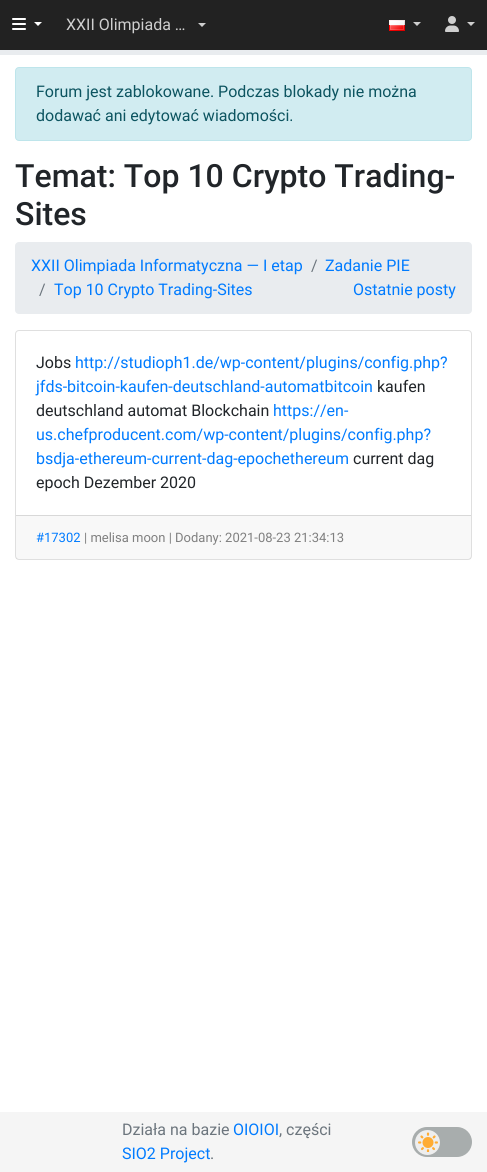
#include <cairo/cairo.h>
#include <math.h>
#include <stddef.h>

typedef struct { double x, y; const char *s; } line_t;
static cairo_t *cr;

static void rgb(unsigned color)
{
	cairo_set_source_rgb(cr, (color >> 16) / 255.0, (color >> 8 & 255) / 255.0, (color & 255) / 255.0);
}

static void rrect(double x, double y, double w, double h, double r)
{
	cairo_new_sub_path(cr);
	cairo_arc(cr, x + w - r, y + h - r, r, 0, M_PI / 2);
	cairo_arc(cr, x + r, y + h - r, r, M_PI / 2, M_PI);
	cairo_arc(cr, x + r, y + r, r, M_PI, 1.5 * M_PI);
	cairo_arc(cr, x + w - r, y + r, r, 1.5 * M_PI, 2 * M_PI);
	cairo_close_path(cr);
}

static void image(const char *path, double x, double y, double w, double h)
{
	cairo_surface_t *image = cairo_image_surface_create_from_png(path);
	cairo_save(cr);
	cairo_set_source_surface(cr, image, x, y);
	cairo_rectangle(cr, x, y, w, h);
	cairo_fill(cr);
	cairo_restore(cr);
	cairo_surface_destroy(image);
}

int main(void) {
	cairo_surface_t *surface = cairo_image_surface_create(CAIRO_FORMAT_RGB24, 487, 1172);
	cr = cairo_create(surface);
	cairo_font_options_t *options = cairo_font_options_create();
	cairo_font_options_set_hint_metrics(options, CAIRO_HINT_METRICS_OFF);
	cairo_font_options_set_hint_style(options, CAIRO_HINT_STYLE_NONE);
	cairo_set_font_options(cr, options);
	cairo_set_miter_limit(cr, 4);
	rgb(0xffffff);
	cairo_paint(cr);
	rgb(0x222222);
	cairo_rectangle(cr, 0, 0, 487, 50);
	cairo_fill(cr);
	image("img/1.png", 12, 18, 14, 12);
	rgb(0xffffff);
	cairo_new_path(cr);
	cairo_move_to(cr, 34, 22);
	cairo_line_to(cr, 42, 22);
	cairo_line_to(cr, 38, 26);
	cairo_close_path(cr);
	cairo_fill(cr);
	rgb(0xcfcfcf);
	cairo_new_path(cr);
	cairo_move_to(cr, 198, 23);
	cairo_line_to(cr, 206, 23);
	cairo_line_to(cr, 202, 27);
	cairo_close_path(cr);
	cairo_fill(cr);
	image("img/2.png", 389, 20, 16, 11);
	cairo_new_path(cr);
	cairo_move_to(cr, 413, 22);
	cairo_line_to(cr, 421, 22);
	cairo_line_to(cr, 417, 26);
	cairo_close_path(cr);
	cairo_fill(cr);
	image("img/3.png", 445, 16, 14, 16);
	cairo_new_path(cr);
	cairo_move_to(cr, 467, 22);
	cairo_line_to(cr, 475, 22);
	cairo_line_to(cr, 471, 26);
	cairo_close_path(cr);
	cairo_fill(cr);
	rgb(0xe9ecef);
	cairo_rectangle(cr, 0, 50, 487, 5);
	cairo_fill(cr);
	rgb(0xd1ecf1);
	rrect(15.5, 67.5, 456, 73, 3.5);
	cairo_fill_preserve(cr);
	rgb(0xbee5eb);
	cairo_set_line_width(cr, 1);
	cairo_stroke(cr);
	rgb(0xe9ecef);
	rrect(15, 242, 457, 72, 4);
	cairo_fill(cr);
	rrect(15.5, 330.5, 456, 229, 3.5);
	rgb(0xdfdfdf);
	cairo_stroke(cr);
	cairo_set_source_rgba(cr, 0, 0, 0, 0.03);
	cairo_rectangle(cr, 16, 516, 455, 43);
	cairo_fill(cr);
	rgb(0xd8d8d8);
	cairo_rectangle(cr, 16, 515, 455, 1);
	cairo_fill(cr);
	rgb(0xf5f5f5);
	cairo_rectangle(cr, 0, 1112, 487, 60);
	cairo_fill(cr);
	rgb(0xa8adad);
	rrect(412, 1127, 60, 30, 15);
	cairo_fill(cr);
	rgb(0xeeeeee);
	cairo_arc(cr, 427.5, 1142.5, 12.5, 0, 2 * M_PI);
	cairo_fill(cr);
	image("img/4.png", 418, 1132, 20, 20);
	cairo_select_font_face(cr, "Roboto", CAIRO_FONT_SLANT_NORMAL, CAIRO_FONT_WEIGHT_NORMAL);
	cairo_set_font_size(cr, 16);
	rgb(0xcfcfcf);
	cairo_move_to(cr, 66, 30);
	cairo_show_text(cr, "XXII Olimpiada …");
	rgb(0x0c5460);
	cairo_move_to(cr, 36, 97);
	cairo_show_text(cr, "Forum jest zablokowane. Podczas blokady nie można");
	cairo_move_to(cr, 36, 121);
	cairo_show_text(cr, "dodawać ani edytować wiadomości.");
	cairo_select_font_face(cr, "Roboto Medium", CAIRO_FONT_SLANT_NORMAL, CAIRO_FONT_WEIGHT_NORMAL);
	cairo_set_font_size(cr, 32);
	rgb(0x212529);
	cairo_move_to(cr, 15, 187);
	cairo_show_text(cr, "Temat: Top 10 Crypto Trading-");
	cairo_move_to(cr, 15, 225);
	cairo_show_text(cr, "Sites");
	cairo_select_font_face(cr, "Roboto", CAIRO_FONT_SLANT_NORMAL, CAIRO_FONT_WEIGHT_NORMAL);
	cairo_set_font_size(cr, 16);
	rgb(0x007bff);
	cairo_move_to(cr, 31, 271);
	cairo_show_text(cr, "XXII Olimpiada Informatyczna — I etap");
	rgb(0x6c757d);
	cairo_move_to(cr, 311, 271);
	cairo_show_text(cr, "/");
	rgb(0x007bff);
	cairo_move_to(cr, 325, 271);
	cairo_show_text(cr, "Zadanie PIE");
	rgb(0x6c757d);
	cairo_move_to(cr, 39, 295);
	cairo_show_text(cr, "/");
	rgb(0x007bff);
	cairo_move_to(cr, 54, 295);
	cairo_show_text(cr, "Top 10 Crypto Trading-Sites");
	cairo_move_to(cr, 353, 295);
	cairo_show_text(cr, "Ostatnie posty");
	rgb(0x212529);
	cairo_move_to(cr, 36, 368);
	cairo_show_text(cr, "Jobs");
	rgb(0x007bff);
	cairo_move_to(cr, 75, 368);
	cairo_show_text(cr, "http://studioph1.de/wp-content/plugins/config.php?");
	cairo_move_to(cr, 36, 392);
	cairo_show_text(cr, "jfds-bitcoin-kaufen-deutschland-automatbitcoin");
	rgb(0x212529);
	cairo_move_to(cr, 377, 392);
	cairo_show_text(cr, "kaufen");
	cairo_move_to(cr, 36, 416);
	cairo_show_text(cr, "deutschland automat Blockchain");
	rgb(0x007bff);
	{
		static const line_t items[] = {
			{273, 416, "https://en-"},
			{36, 440, "us.chefproducent.com/wp-content/plugins/config.php?"},
			{36, 464, "bsdja-ethereum-current-dag-epochethereum"},
		};
		for (size_t i = 0; i < sizeof items / sizeof *items; i++) {
			cairo_move_to(cr, items[i].x, items[i].y);
			cairo_show_text(cr, items[i].s);
		}
	}
	rgb(0x212529);
	cairo_move_to(cr, 353, 464);
	cairo_show_text(cr, "current dag");
	cairo_move_to(cr, 36, 488);
	cairo_show_text(cr, "epoch Dezember 2020");
	cairo_set_font_size(cr, 13);
	rgb(0x007bff);
	cairo_move_to(cr, 36, 542);
	cairo_show_text(cr, "#17302");
	rgb(0x808080);
	cairo_move_to(cr, 84, 542);
	cairo_show_text(cr, "| melisa moon | Dodany: 2021-08-23 21:34:13");
	cairo_set_font_size(cr, 16);
	rgb(0x6c757d);
	cairo_move_to(cr, 122, 1135);
	cairo_show_text(cr, "Działa na bazie");
	rgb(0x007bff);
	cairo_move_to(cr, 233, 1135);
	cairo_show_text(cr, "OIOIOI");
	rgb(0x6c757d);
	cairo_move_to(cr, 279, 1135);
	cairo_show_text(cr, ", części");
	rgb(0x007bff);
	cairo_move_to(cr, 122, 1159);
	cairo_show_text(cr, "SIO2 Project");
	rgb(0x6c757d);
	cairo_move_to(cr, 210, 1159);
	cairo_show_text(cr, ".");
	cairo_surface_write_to_png(surface, "page.png");
	cairo_font_options_destroy(options);
	cairo_destroy(cr);
	cairo_surface_destroy(surface);
	return 0;
}
